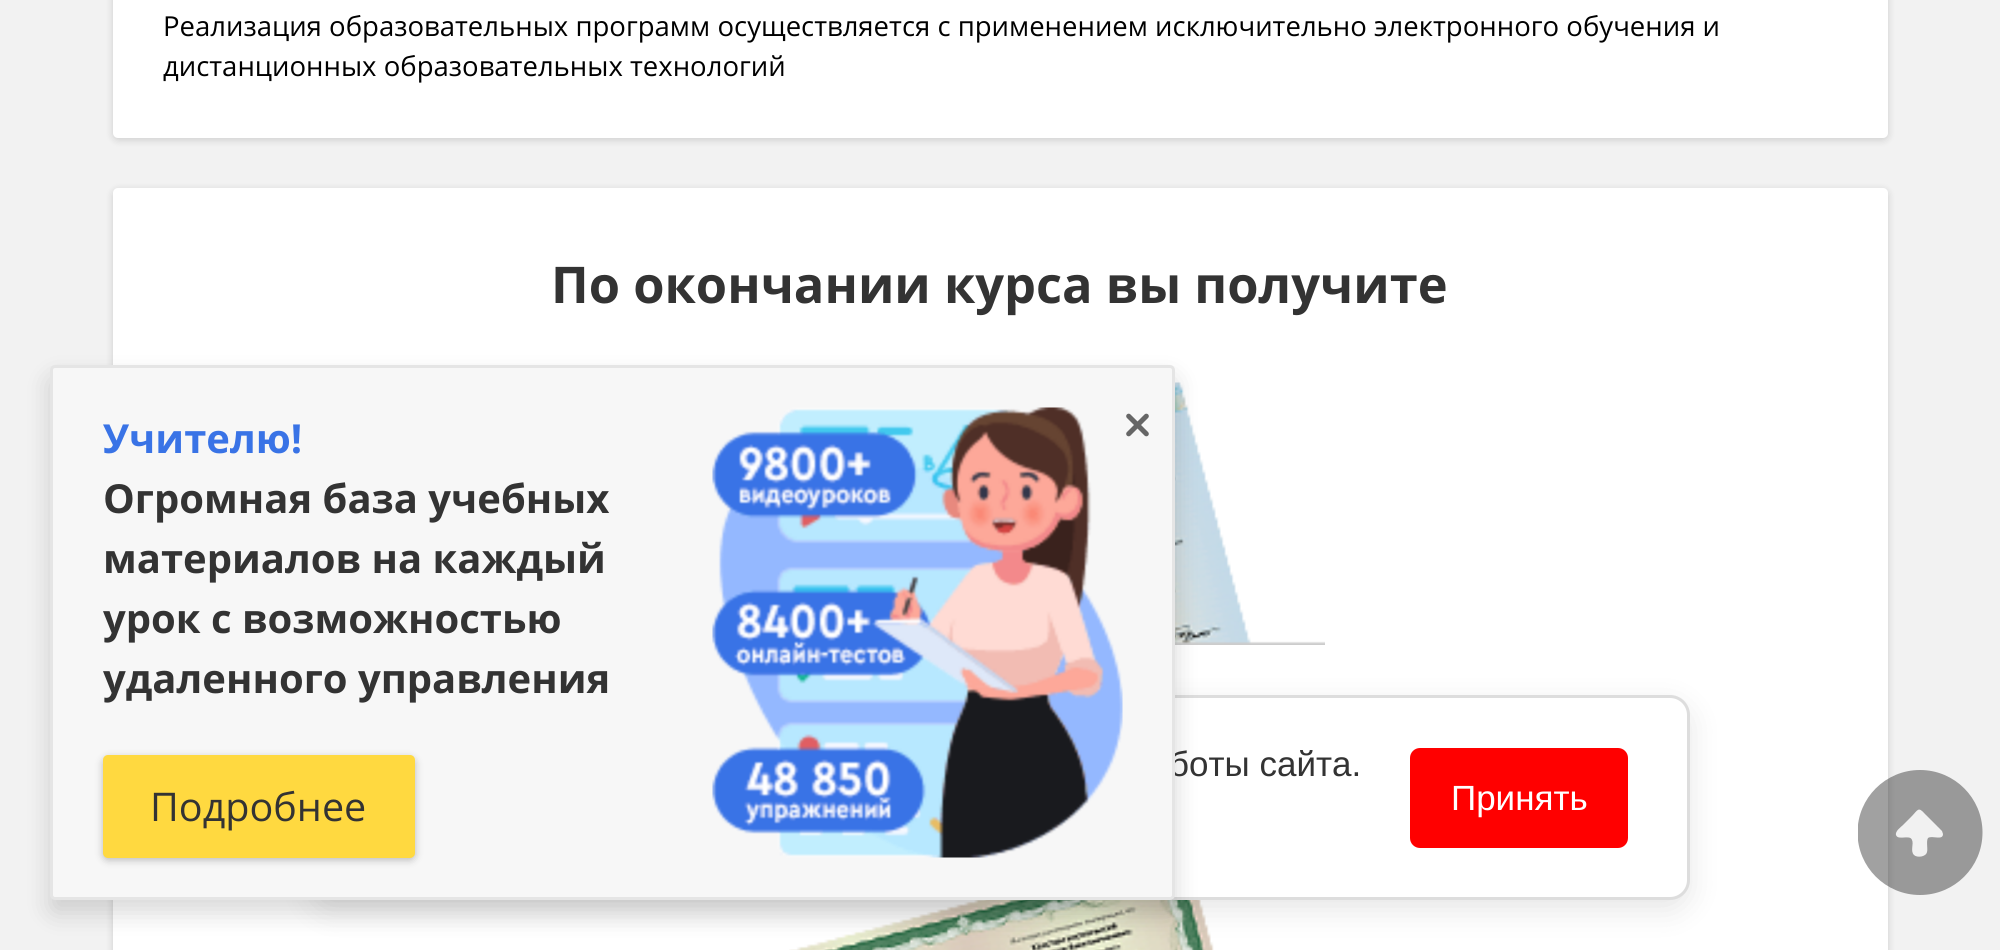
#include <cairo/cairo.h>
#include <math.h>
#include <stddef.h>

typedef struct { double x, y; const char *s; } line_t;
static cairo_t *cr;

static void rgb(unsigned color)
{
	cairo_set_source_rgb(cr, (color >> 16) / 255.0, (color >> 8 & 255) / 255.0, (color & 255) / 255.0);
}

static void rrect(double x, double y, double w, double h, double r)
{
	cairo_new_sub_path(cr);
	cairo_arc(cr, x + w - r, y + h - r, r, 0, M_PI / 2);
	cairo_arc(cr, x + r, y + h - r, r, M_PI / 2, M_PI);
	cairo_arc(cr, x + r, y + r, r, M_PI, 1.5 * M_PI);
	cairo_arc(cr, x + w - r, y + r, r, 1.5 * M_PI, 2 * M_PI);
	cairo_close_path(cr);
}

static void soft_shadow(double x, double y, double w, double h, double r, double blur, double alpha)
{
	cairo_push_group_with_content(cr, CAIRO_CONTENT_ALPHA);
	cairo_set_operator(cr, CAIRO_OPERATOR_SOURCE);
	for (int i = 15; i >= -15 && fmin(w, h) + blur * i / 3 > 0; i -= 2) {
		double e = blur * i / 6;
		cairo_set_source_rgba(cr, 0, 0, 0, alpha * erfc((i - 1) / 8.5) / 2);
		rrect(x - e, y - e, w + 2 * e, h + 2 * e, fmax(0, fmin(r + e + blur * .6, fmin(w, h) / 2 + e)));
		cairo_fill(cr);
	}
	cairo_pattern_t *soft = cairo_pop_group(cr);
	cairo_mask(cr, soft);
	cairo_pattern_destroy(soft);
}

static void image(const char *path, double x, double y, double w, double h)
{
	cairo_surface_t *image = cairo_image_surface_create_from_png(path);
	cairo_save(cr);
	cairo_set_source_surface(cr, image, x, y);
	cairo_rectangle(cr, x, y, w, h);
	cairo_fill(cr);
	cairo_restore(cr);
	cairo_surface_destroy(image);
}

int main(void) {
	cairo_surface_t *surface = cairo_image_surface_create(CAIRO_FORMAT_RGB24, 2000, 950);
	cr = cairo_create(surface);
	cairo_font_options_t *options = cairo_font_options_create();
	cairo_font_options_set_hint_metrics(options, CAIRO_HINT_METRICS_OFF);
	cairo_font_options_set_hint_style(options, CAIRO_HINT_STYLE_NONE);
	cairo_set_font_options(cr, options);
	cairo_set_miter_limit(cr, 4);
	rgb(0xf2f2f2);
	cairo_paint(cr);
	rgb(0x000000);
	soft_shadow(113, -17, 1775, 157, 5, 4, 0.15);
	rgb(0xffffff);
	rrect(113, -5, 1775, 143, 5);
	cairo_fill(cr);
	rgb(0x000000);
	soft_shadow(113, 190, 1775, 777, 5, 4, 0.15);
	rgb(0xffffff);
	rrect(113, 188, 1775, 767, 5);
	cairo_fill(cr);
	image("img/1.png", 1175, 382, 150, 263);
	image("img/2.png", 789, 900, 425, 50);
	rgb(0x000000);
	soft_shadow(310, 705, 1380, 205, 20, 15, 0.1);
	rgb(0xffffff);
	rrect(311.5, 696.5, 1377, 202, 18.5);
	cairo_fill_preserve(cr);
	rgb(0xdddddd);
	cairo_set_line_width(cr, 3);
	cairo_stroke(cr);
	rgb(0x000000);
	soft_shadow(50, 378, 1125, 535, 5, 12.5, 0.15);
	rgb(0xff0000);
	rrect(1410, 748, 218, 100, 10);
	cairo_fill(cr);
	cairo_save(cr);
	cairo_rectangle(cr, 1858, 770, 125, 125);
	cairo_clip(cr);
	cairo_set_source_rgba(cr, 0, 0, 0, 0.37);
	cairo_arc(cr, 1920, 832.5, 62.5, 0, 2 * M_PI);
	cairo_fill(cr);
	cairo_restore(cr);
	rgb(0xf1f1f1);
	cairo_new_path(cr);
	cairo_move_to(cr, 1942, 831);
	cairo_line_to(cr, 1925, 814);
	cairo_curve_to(cr, 1918, 806, 1918, 810, 1911, 817);
	cairo_line_to(cr, 1903, 825);
	cairo_curve_to(cr, 1901, 827, 1895, 831, 1896, 835);
	cairo_curve_to(cr, 1898, 841, 1910, 834, 1912, 840);
	cairo_curve_to(cr, 1914, 844, 1910, 851, 1914, 855);
	cairo_curve_to(cr, 1917, 858, 1926, 857, 1927, 852);
	cairo_curve_to(cr, 1928, 849, 1926, 841, 1928, 838);
	cairo_curve_to(cr, 1932, 835, 1943, 841, 1943, 834);
	cairo_close_path(cr);
	cairo_fill(cr);
	cairo_select_font_face(cr, "Open Sans", CAIRO_FONT_SLANT_NORMAL, CAIRO_FONT_WEIGHT_NORMAL);
	cairo_set_font_size(cr, 27.5);
	rgb(0x000000);
	cairo_move_to(cr, 163, 36);
	cairo_show_text(cr, "Реализация образовательных программ осуществляется с применением исключительно электронного обучения и");
	cairo_move_to(cr, 163, 76);
	cairo_show_text(cr, "дистанционных образовательных технологий");
	cairo_select_font_face(cr, "Open Sans", CAIRO_FONT_SLANT_NORMAL, CAIRO_FONT_WEIGHT_BOLD);
	cairo_set_font_size(cr, 50.6);
	rgb(0x333333);
	cairo_move_to(cr, 551, 303);
	cairo_show_text(cr, "По окончании курса вы получите");
	cairo_select_font_face(cr, "Liberation Sans", CAIRO_FONT_SLANT_NORMAL, CAIRO_FONT_WEIGHT_NORMAL);
	cairo_set_font_size(cr, 35);
	cairo_move_to(cr, 1169, 776);
	cairo_show_text(cr, "боты сайта.");
	rgb(0xf7f7f7);
	rrect(51.5, 366.5, 1122, 532, 3.5);
	cairo_fill_preserve(cr);
	rgb(0xe5e5e5);
	cairo_stroke(cr);
	image("img/4.png", 1126, 413, 23, 24);
	image("img/3.png", 712, 407, 411, 451);
	rgb(0x000000);
	soft_shadow(103, 758, 312, 102, 5, 4, 0.25);
	rgb(0xffd940);
	rrect(103, 755, 312, 103, 5);
	cairo_fill(cr);
	cairo_select_font_face(cr, "Open Sans", CAIRO_FONT_SLANT_NORMAL, CAIRO_FONT_WEIGHT_NORMAL);
	cairo_set_font_size(cr, 39.5);
	rgb(0x333333);
	cairo_move_to(cr, 150, 821);
	cairo_show_text(cr, "Подробнее");
	cairo_select_font_face(cr, "Open Sans", CAIRO_FONT_SLANT_NORMAL, CAIRO_FONT_WEIGHT_BOLD);
	cairo_set_font_size(cr, 40);
	{
		static const line_t items[] = {
			{103, 693, "удаленного управления"},
			{103, 633, "урок с возможностью"},
			{103, 573, "материалов на каждый"},
			{103, 513, "Огромная база учебных"},
		};
		for (size_t i = 0; i < sizeof items / sizeof *items; i++) {
			cairo_move_to(cr, items[i].x, items[i].y);
			cairo_show_text(cr, items[i].s);
		}
	}
	rgb(0x3973e6);
	cairo_move_to(cr, 103, 453);
	cairo_show_text(cr, "Учителю!");
	cairo_select_font_face(cr, "Liberation Sans", CAIRO_FONT_SLANT_NORMAL, CAIRO_FONT_WEIGHT_NORMAL);
	cairo_set_font_size(cr, 35);
	rgb(0xffffff);
	cairo_move_to(cr, 1451, 810);
	cairo_show_text(cr, "Принять");
	cairo_surface_write_to_png(surface, "page.png");
	cairo_font_options_destroy(options);
	cairo_destroy(cr);
	cairo_surface_destroy(surface);
	return 0;
}
